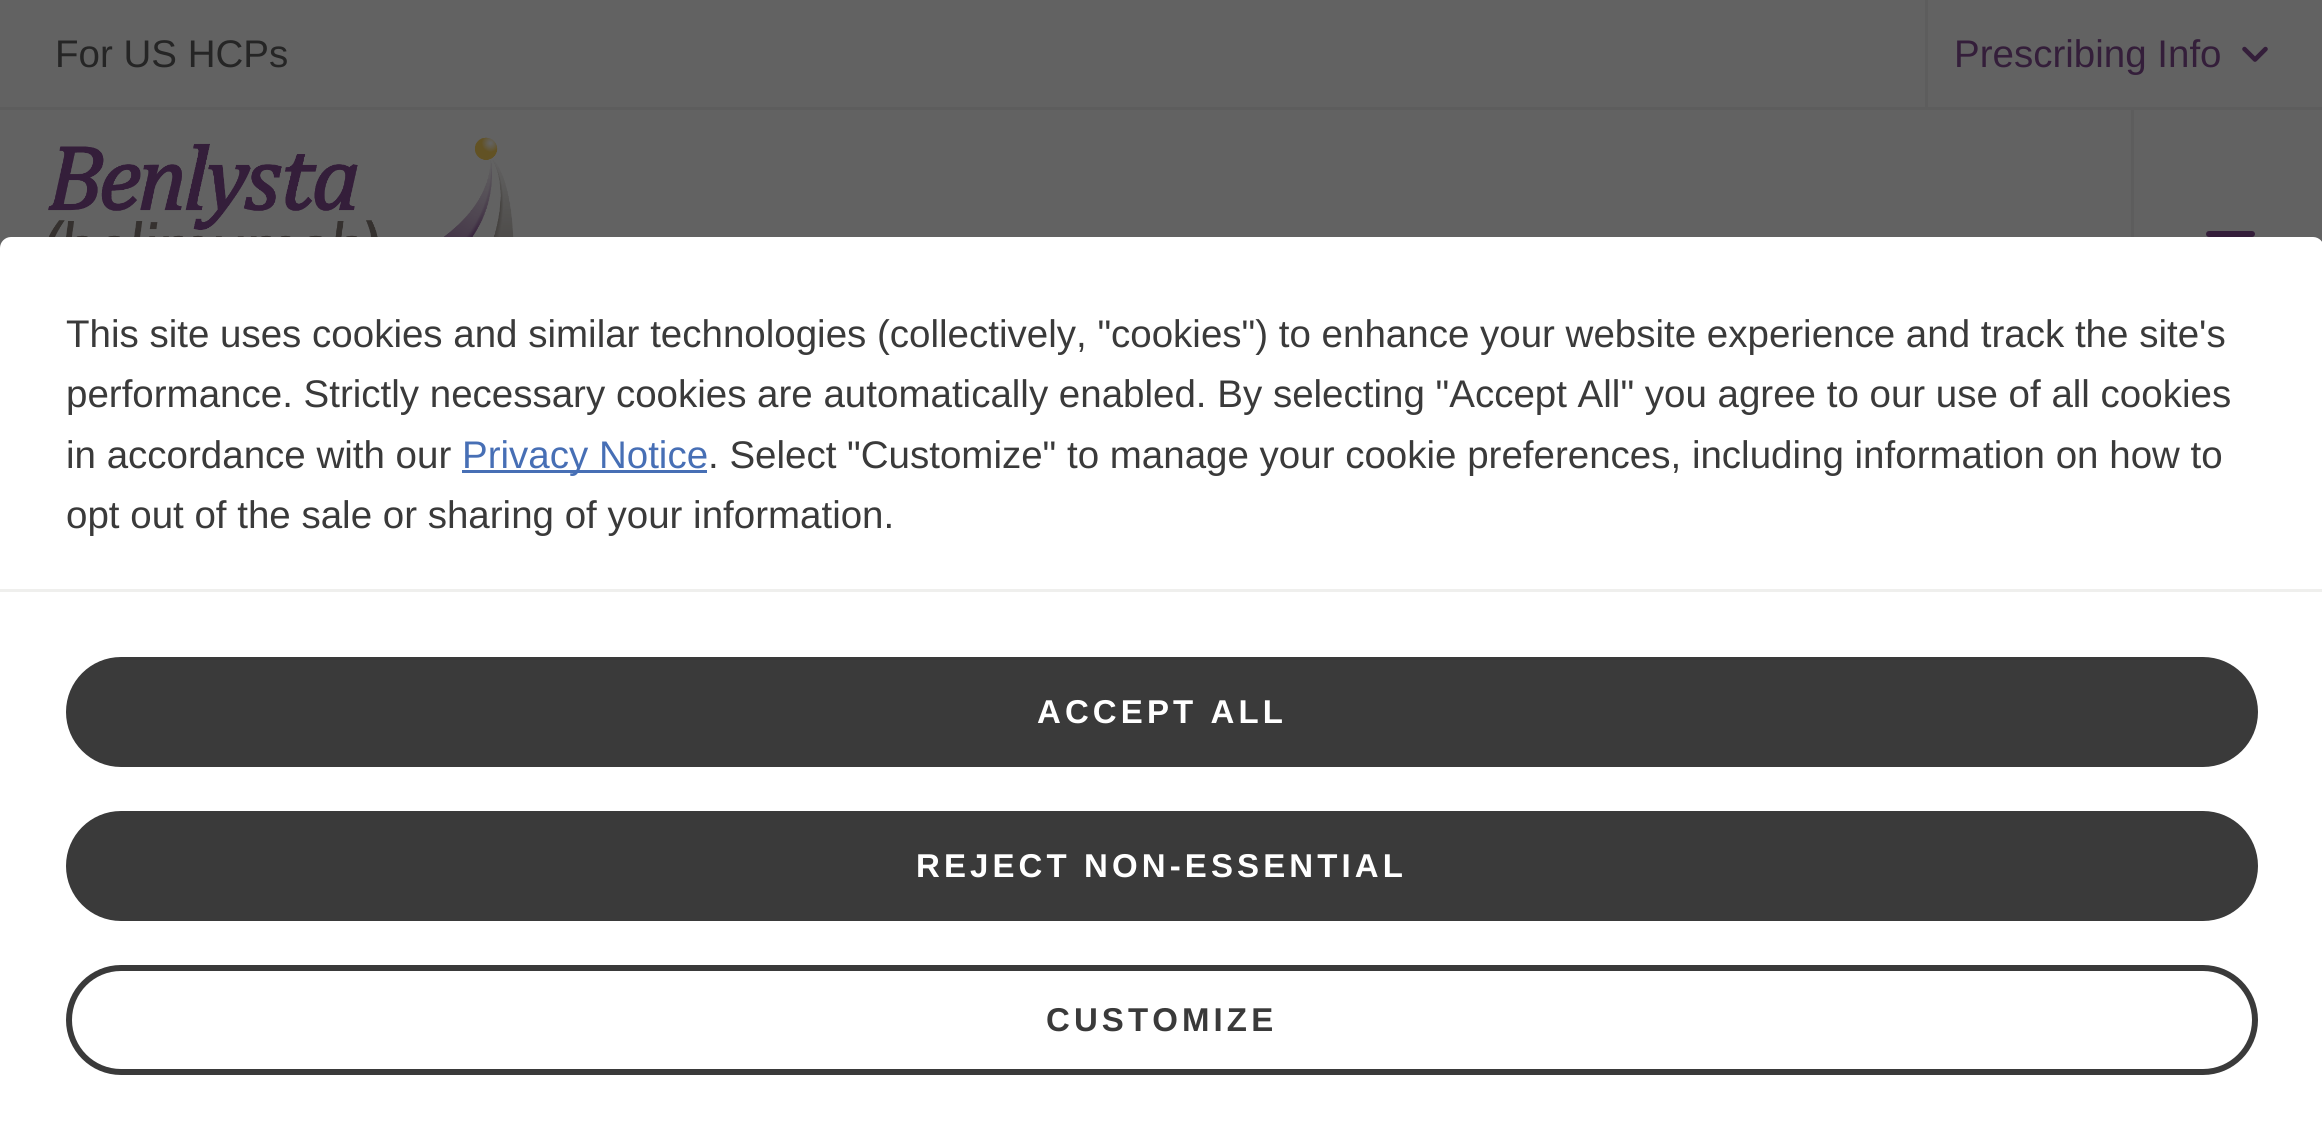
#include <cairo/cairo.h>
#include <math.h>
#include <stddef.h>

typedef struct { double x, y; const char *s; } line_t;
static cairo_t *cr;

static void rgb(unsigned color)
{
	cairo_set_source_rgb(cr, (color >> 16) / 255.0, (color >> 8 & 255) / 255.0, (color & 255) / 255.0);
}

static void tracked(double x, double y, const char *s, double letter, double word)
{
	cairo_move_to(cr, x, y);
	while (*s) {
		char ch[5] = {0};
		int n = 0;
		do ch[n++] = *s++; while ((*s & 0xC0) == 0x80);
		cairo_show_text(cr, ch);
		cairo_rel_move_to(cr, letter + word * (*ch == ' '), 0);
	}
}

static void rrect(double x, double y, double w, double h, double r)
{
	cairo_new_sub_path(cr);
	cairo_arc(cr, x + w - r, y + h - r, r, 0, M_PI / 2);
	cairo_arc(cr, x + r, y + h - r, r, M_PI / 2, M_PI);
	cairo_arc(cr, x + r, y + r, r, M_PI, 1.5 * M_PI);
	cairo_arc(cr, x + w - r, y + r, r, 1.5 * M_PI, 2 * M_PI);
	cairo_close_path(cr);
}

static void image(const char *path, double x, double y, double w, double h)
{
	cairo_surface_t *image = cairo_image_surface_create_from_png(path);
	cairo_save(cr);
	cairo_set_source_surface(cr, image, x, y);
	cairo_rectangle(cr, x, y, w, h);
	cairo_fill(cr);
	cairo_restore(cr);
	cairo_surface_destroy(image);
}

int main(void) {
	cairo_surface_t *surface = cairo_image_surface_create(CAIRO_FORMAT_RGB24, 2322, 1140);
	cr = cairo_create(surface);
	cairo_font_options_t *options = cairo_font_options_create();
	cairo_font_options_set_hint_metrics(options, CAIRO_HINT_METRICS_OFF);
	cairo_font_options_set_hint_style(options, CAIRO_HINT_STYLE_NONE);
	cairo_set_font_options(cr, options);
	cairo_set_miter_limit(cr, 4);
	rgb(0x626262);
	cairo_paint(cr);
	rgb(0x5d5d5d);
	cairo_rectangle(cr, 0, 107, 2322, 3);
	cairo_fill(cr);
	cairo_rectangle(cr, 1925, 0, 3, 110);
	cairo_fill(cr);
	image("img/1.png", 2242, 46, 26, 16);
	image("img/2.png", 48, 137, 466, 100);
	rgb(0x341e3a);
	rrect(2206, 231, 49, 6, 3);
	cairo_fill(cr);
	rgb(0x5d5d5d);
	cairo_rectangle(cr, 2131, 110, 3, 127);
	cairo_fill(cr);
	rgb(0xffffff);
	cairo_new_path(cr);
	cairo_move_to(cr, 11, 237);
	cairo_line_to(cr, 2313, 237);
	cairo_curve_to(cr, 2319, 237, 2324, 242, 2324, 248);
	cairo_line_to(cr, 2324, 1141);
	cairo_line_to(cr, 0, 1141);
	cairo_line_to(cr, 0, 248);
	cairo_curve_to(cr, 0, 242, 5, 237, 11, 237);
	cairo_close_path(cr);
	cairo_fill(cr);
	rgb(0x476fb5);
	cairo_rectangle(cr, 462, 470, 245, 3);
	cairo_fill(cr);
	rgb(0xefefed);
	cairo_rectangle(cr, 0, 589, 2322, 3);
	cairo_fill(cr);
	rgb(0x3a3a3a);
	rrect(69, 660, 2186, 104, 52);
	cairo_fill_preserve(cr);
	cairo_set_line_width(cr, 6);
	cairo_stroke(cr);
	rrect(69, 814, 2186, 104, 52);
	cairo_fill_preserve(cr);
	cairo_stroke(cr);
	rrect(69, 968, 2186, 104, 52);
	cairo_stroke(cr);
	cairo_select_font_face(cr, "Liberation Sans", CAIRO_FONT_SLANT_NORMAL, CAIRO_FONT_WEIGHT_NORMAL);
	cairo_set_font_size(cr, 38.5);
	rgb(0x252525);
	cairo_move_to(cr, 55, 67);
	cairo_show_text(cr, "For US HCPs");
	rgb(0x341e3a);
	cairo_move_to(cr, 1954, 67);
	cairo_show_text(cr, "Prescribing Info");
	rgb(0x3a3a3a);
	{
		static const line_t items[] = {
			{66, 347, "This site uses cookies and similar technologies (collectively, \"cookies\") to enhance your website experience and track the site's"},
			{66, 407, "performance. Strictly necessary cookies are automatically enabled. By selecting \"Accept All\" you agree to our use of all cookies"},
			{66, 468, "in accordance with our"},
		};
		for (size_t i = 0; i < sizeof items / sizeof *items; i++) {
			cairo_move_to(cr, items[i].x, items[i].y);
			cairo_show_text(cr, items[i].s);
		}
	}
	rgb(0x476fb5);
	cairo_move_to(cr, 462, 468);
	cairo_show_text(cr, "Privacy Notice");
	rgb(0x3a3a3a);
	cairo_move_to(cr, 708, 468);
	cairo_show_text(cr, ". Select \"Customize\" to manage your cookie preferences, including information on how to");
	cairo_move_to(cr, 66, 528);
	cairo_show_text(cr, "opt out of the sale or sharing of your information.");
	cairo_select_font_face(cr, "Liberation Sans", CAIRO_FONT_SLANT_NORMAL, CAIRO_FONT_WEIGHT_BOLD);
	cairo_set_font_size(cr, 33);
	rgb(0xffffff);
	tracked(1037, 723, "ACCEPT ALL", 4.1, 0);
	tracked(916, 877, "REJECT NON-ESSENTIAL", 4.1, 0);
	rgb(0x3a3a3a);
	tracked(1046, 1031, "CUSTOMIZE", 4.1, 0);
	cairo_surface_write_to_png(surface, "page.png");
	cairo_font_options_destroy(options);
	cairo_destroy(cr);
	cairo_surface_destroy(surface);
	return 0;
}
